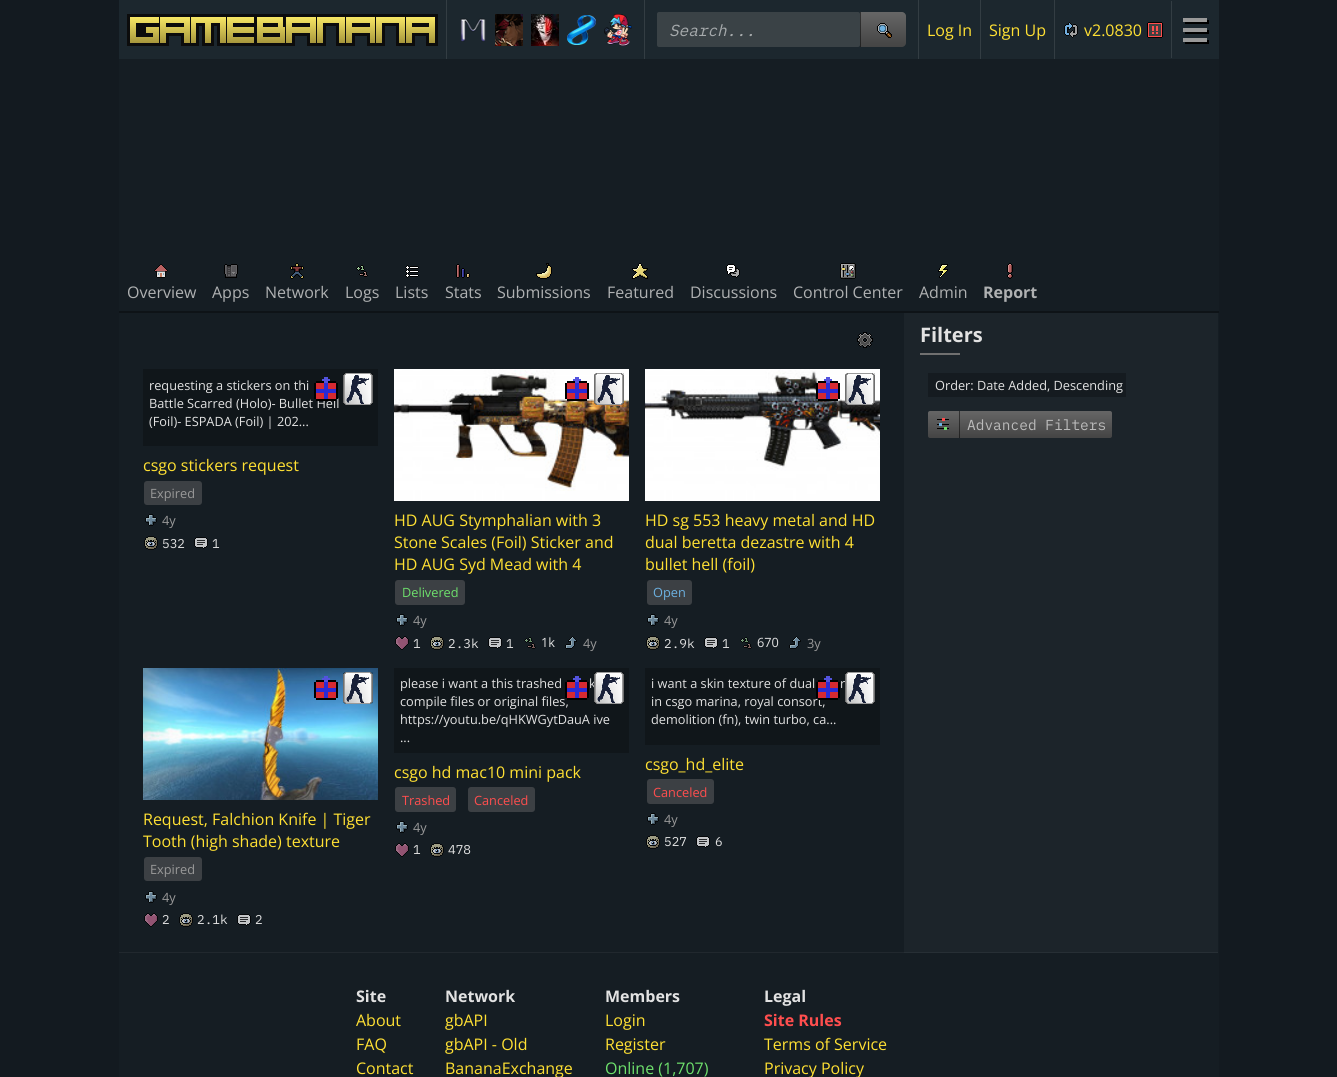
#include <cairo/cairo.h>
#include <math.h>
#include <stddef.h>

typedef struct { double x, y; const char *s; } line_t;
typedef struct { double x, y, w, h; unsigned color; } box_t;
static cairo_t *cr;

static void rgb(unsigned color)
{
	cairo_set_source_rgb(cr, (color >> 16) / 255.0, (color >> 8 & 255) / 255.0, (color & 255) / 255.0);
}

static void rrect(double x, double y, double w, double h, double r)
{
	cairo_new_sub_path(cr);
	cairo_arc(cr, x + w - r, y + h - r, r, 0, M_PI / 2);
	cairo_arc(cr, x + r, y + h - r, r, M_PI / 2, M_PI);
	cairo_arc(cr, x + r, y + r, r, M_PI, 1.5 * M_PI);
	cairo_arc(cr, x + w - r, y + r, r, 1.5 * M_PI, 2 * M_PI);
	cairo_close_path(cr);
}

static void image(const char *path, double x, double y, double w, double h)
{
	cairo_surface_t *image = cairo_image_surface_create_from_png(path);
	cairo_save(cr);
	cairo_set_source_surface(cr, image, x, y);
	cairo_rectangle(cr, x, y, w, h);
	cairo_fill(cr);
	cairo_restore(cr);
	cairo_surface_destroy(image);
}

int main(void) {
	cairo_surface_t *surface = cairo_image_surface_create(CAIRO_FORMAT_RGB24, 1337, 1077);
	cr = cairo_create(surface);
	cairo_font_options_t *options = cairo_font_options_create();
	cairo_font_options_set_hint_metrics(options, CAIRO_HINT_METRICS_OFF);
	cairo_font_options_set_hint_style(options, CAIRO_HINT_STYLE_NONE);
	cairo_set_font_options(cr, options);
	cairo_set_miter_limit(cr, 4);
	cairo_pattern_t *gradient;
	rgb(0x131a20);
	cairo_paint(cr);
	rgb(0x1c272e);
	cairo_rectangle(cr, 119, 0, 1100, 59);
	cairo_fill(cr);
	image("img/1.png", 127, 14, 311, 32);
	rgb(0x333d43);
	cairo_rectangle(cr, 446, 0, 1, 59);
	cairo_fill(cr);
	image("img/2.png", 460, 18, 26, 24);
	image("img/3.png", 495, 14, 28, 32);
	image("img/4.png", 531, 14, 28, 32);
	image("img/5.png", 567, 15, 29, 30);
	image("img/6.png", 604, 14, 28, 32);
	cairo_rectangle(cr, 644, 0, 1, 59);
	cairo_fill(cr);
	rgb(0x3a4246);
	rrect(657, 12, 203, 35, 2);
	cairo_fill(cr);
	gradient = cairo_pattern_create_linear(884, 12, 884, 47);
	cairo_pattern_add_color_stop_rgba(gradient, 0, 0.4, 0.4, 0.4, 1);
	cairo_pattern_add_color_stop_rgba(gradient, 1, 0.267, 0.267, 0.267, 1);
	cairo_set_source(cr, gradient);
	cairo_pattern_destroy(gradient);
	cairo_new_path(cr);
	cairo_move_to(cr, 860, 12);
	cairo_line_to(cr, 902, 12);
	cairo_curve_to(cr, 904, 12, 906, 14, 906, 16);
	cairo_line_to(cr, 906, 43);
	cairo_curve_to(cr, 906, 45, 904, 47, 902, 47);
	cairo_line_to(cr, 860, 47);
	cairo_close_path(cr);
	cairo_fill(cr);
	gradient = cairo_pattern_create_linear(884, 12, 884, 47);
	cairo_pattern_add_color_stop_rgba(gradient, 0, 0.2, 0.2, 0.2, 1);
	cairo_pattern_add_color_stop_rgba(gradient, 1, 0.133, 0.133, 0.133, 1);
	cairo_set_source(cr, gradient);
	cairo_pattern_destroy(gradient);
	cairo_rectangle(cr, 860, 12, 1, 35);
	cairo_fill(cr);
	image("img/7.png", 877, 23, 15, 15);
	{
		static const box_t items[] = {
			{918, 0, 1, 59, 0x333d43},
			{980, 0, 1, 59, 0x333d43},
			{1054, 0, 1, 59, 0x333d43},
		};
		for (size_t i = 0; i < sizeof items / sizeof *items; i++) {
			rgb(items[i].color);
			cairo_rectangle(cr, items[i].x, items[i].y, items[i].w, items[i].h);
			cairo_fill(cr);
		}
	}
	image("img/8.png", 1064, 22, 14, 16);
	image("img/9.png", 1147, 22, 16, 16);
	cairo_rectangle(cr, 1171, 1, 1, 57);
	cairo_fill(cr);
	image("img/10.png", 1183, 18, 26, 26);
	rgb(0x151d23);
	cairo_rectangle(cr, 119, 59, 1100, 1018);
	cairo_fill(cr);
	rgb(0x0e1317);
	cairo_rectangle(cr, 119, 311, 1100, 2);
	cairo_fill(cr);
	image("img/11.png", 154, 264, 14, 14);
	image("img/12.png", 224, 264, 14, 14);
	image("img/13.png", 290, 263, 14, 16);
	image("img/14.png", 356, 265, 12, 12);
	image("img/15.png", 405, 265, 14, 13);
	image("img/16.png", 456, 264, 14, 14);
	image("img/17.png", 536, 263, 16, 16);
	image("img/18.png", 632, 263, 16, 16);
	image("img/19.png", 726, 264, 14, 14);
	image("img/20.png", 840, 263, 16, 16);
	image("img/21.png", 938, 264, 10, 14);
	image("img/22.png", 1007, 263, 6, 16);
	rgb(0x21282e);
	cairo_rectangle(cr, 119, 952, 785, 1);
	cairo_fill(cr);
	image("img/23.png", 857, 332, 16, 16);
	rgb(0x10161a);
	cairo_rectangle(cr, 143, 369, 235, 77);
	cairo_fill(cr);
	image("img/25.png", 343, 373, 30, 32);
	rgb(0x3c4044);
	rrect(144, 481, 58, 24, 3);
	cairo_fill(cr);
	image("img/26.png", 145, 514, 12, 12);
	image("img/27.png", 144, 536, 14, 14);
	image("img/28.png", 194, 537, 14, 12);
	image("img/29.png", 394, 369, 235, 132);
	image("img/30.png", 565, 377, 24, 24);
	image("img/31.png", 594, 373, 30, 32);
	rrect(395, 580, 70, 25, 3);
	cairo_fill(cr);
	image("img/26.png", 396, 614, 12, 12);
	image("img/32.png", 395, 636, 14, 14);
	image("img/27.png", 430, 636, 14, 14);
	image("img/28.png", 488, 637, 14, 12);
	image("img/33.png", 524, 637, 12, 12);
	image("img/34.png", 565, 636, 12, 13);
	image("img/35.png", 645, 369, 235, 132);
	image("img/36.png", 816, 377, 24, 24);
	image("img/37.png", 845, 373, 30, 32);
	rrect(647, 580, 45, 25, 3);
	cairo_fill(cr);
	image("img/26.png", 647, 614, 12, 12);
	image("img/27.png", 646, 636, 14, 14);
	image("img/28.png", 704, 637, 14, 12);
	image("img/33.png", 740, 637, 12, 12);
	image("img/34.png", 789, 636, 12, 13);
	rgb(0x10161a);
	cairo_rectangle(cr, 394, 668, 235, 85);
	cairo_fill(cr);
	rgb(0x3c4044);
	rrect(395, 787, 61, 25, 3);
	cairo_fill(cr);
	rrect(468, 787, 67, 25, 3);
	cairo_fill(cr);
	image("img/26.png", 396, 821, 12, 12);
	image("img/32.png", 395, 843, 14, 14);
	image("img/27.png", 430, 843, 14, 14);
	rgb(0x10161a);
	cairo_rectangle(cr, 645, 668, 235, 77);
	cairo_fill(cr);
	image("img/25.png", 845, 672, 30, 32);
	rgb(0x3c4044);
	rrect(647, 779, 67, 25, 3);
	cairo_fill(cr);
	image("img/26.png", 647, 813, 12, 12);
	image("img/27.png", 646, 835, 14, 14);
	image("img/28.png", 696, 836, 14, 12);
	image("img/40.png", 143, 668, 235, 132);
	image("img/41.png", 314, 676, 24, 24);
	image("img/42.png", 343, 672, 30, 32);
	rrect(144, 857, 58, 24, 3);
	cairo_fill(cr);
	image("img/26.png", 145, 891, 12, 12);
	image("img/32.png", 144, 913, 14, 14);
	image("img/27.png", 179, 913, 14, 14);
	image("img/28.png", 237, 914, 14, 12);
	{
		static const box_t items[] = {
			{904, 313, 314, 639, 0x1c242a},
			{904, 952, 314, 1, 0x272f35},
			{920, 353, 40, 2, 0x707070},
			{928, 373, 198, 24, 0x151b20},
		};
		for (size_t i = 0; i < sizeof items / sizeof *items; i++) {
			rgb(items[i].color);
			cairo_rectangle(cr, items[i].x, items[i].y, items[i].w, items[i].h);
			cairo_fill(cr);
		}
	}
	gradient = cairo_pattern_create_linear(1020, 411, 1020, 438);
	cairo_pattern_add_color_stop_rgba(gradient, 0, 0.4, 0.4, 0.4, 1);
	cairo_pattern_add_color_stop_rgba(gradient, 1, 0.267, 0.267, 0.267, 1);
	cairo_set_source(cr, gradient);
	cairo_pattern_destroy(gradient);
	rrect(928, 411, 184, 27, 2);
	cairo_fill(cr);
	gradient = cairo_pattern_create_linear(1020, 411, 1020, 438);
	cairo_pattern_add_color_stop_rgba(gradient, 0, 0.2, 0.2, 0.2, 1);
	cairo_pattern_add_color_stop_rgba(gradient, 1, 0.133, 0.133, 0.133, 1);
	cairo_set_source(cr, gradient);
	cairo_pattern_destroy(gradient);
	cairo_rectangle(cr, 959, 411, 1, 27);
	cairo_fill(cr);
	image("img/43.png", 937, 418, 12, 12);
	cairo_select_font_face(cr, "IBM Plex Mono", CAIRO_FONT_SLANT_ITALIC, CAIRO_FONT_WEIGHT_NORMAL);
	cairo_set_font_size(cr, 16);
	rgb(0xa6aaac);
	cairo_move_to(cr, 669, 36);
	cairo_show_text(cr, "Search...");
	cairo_select_font_face(cr, "Open Sans", CAIRO_FONT_SLANT_NORMAL, CAIRO_FONT_WEIGHT_NORMAL);
	rgb(0xffe033);
	{
		static const line_t items[] = {
			{927, 36, "Log In"},
			{989, 36, "Sign Up"},
			{1084, 36, "v2.0830"},
		};
		for (size_t i = 0; i < sizeof items / sizeof *items; i++) {
			cairo_move_to(cr, items[i].x, items[i].y);
			cairo_show_text(cr, items[i].s);
		}
	}
	rgb(0xafb1b2);
	{
		static const line_t items[] = {
			{127, 298, "Overview"},
			{212, 298, "Apps"},
			{265, 298, "Network"},
			{345, 298, "Logs"},
			{395, 298, "Lists"},
			{445, 298, "Stats"},
			{497, 298, "Submissions"},
			{607, 298, "Featured"},
			{690, 298, "Discussions"},
			{793, 298, "Control Center"},
			{919, 298, "Admin"},
		};
		for (size_t i = 0; i < sizeof items / sizeof *items; i++) {
			cairo_move_to(cr, items[i].x, items[i].y);
			cairo_show_text(cr, items[i].s);
		}
	}
	cairo_select_font_face(cr, "Open Sans", CAIRO_FONT_SLANT_NORMAL, CAIRO_FONT_WEIGHT_BOLD);
	cairo_move_to(cr, 983, 298);
	cairo_show_text(cr, "Report");
	cairo_select_font_face(cr, "Open Sans", CAIRO_FONT_SLANT_NORMAL, CAIRO_FONT_WEIGHT_NORMAL);
	cairo_set_font_size(cr, 12.75);
	rgb(0xe2e2e2);
	{
		static const line_t items[] = {
			{149, 390, "requesting a stickers on thi"},
			{149, 408, "Battle Scarred (Holo)- Bullet Hell"},
			{149, 426, "(Foil)- ESPADA (Foil) | 202..."},
		};
		for (size_t i = 0; i < sizeof items / sizeof *items; i++) {
			cairo_move_to(cr, items[i].x, items[i].y);
			cairo_show_text(cr, items[i].s);
		}
	}
	image("img/24.png", 314, 377, 24, 24);
	cairo_set_font_size(cr, 16);
	rgb(0xffe033);
	cairo_move_to(cr, 143, 471);
	cairo_show_text(cr, "csgo stickers request");
	cairo_set_font_size(cr, 12.75);
	rgb(0x999999);
	cairo_move_to(cr, 150, 498);
	cairo_show_text(cr, "Expired");
	cairo_move_to(cr, 162, 525);
	cairo_show_text(cr, "4y");
	cairo_select_font_face(cr, "IBM Plex Mono", CAIRO_FONT_SLANT_NORMAL, CAIRO_FONT_WEIGHT_NORMAL);
	rgb(0xe2e2e2);
	cairo_move_to(cr, 162, 548);
	cairo_show_text(cr, "532");
	cairo_move_to(cr, 212, 548);
	cairo_show_text(cr, "1");
	cairo_select_font_face(cr, "Open Sans", CAIRO_FONT_SLANT_NORMAL, CAIRO_FONT_WEIGHT_NORMAL);
	cairo_set_font_size(cr, 16);
	rgb(0xffe033);
	{
		static const line_t items[] = {
			{394, 526, "HD AUG Stymphalian with 3"},
			{394, 548, "Stone Scales (Foil) Sticker and"},
			{394, 570, "HD AUG Syd Mead with 4"},
		};
		for (size_t i = 0; i < sizeof items / sizeof *items; i++) {
			cairo_move_to(cr, items[i].x, items[i].y);
			cairo_show_text(cr, items[i].s);
		}
	}
	cairo_set_font_size(cr, 12.75);
	rgb(0x6ee16c);
	cairo_move_to(cr, 402, 597);
	cairo_show_text(cr, "Delivered");
	rgb(0x999999);
	cairo_move_to(cr, 413, 625);
	cairo_show_text(cr, "4y");
	cairo_select_font_face(cr, "IBM Plex Mono", CAIRO_FONT_SLANT_NORMAL, CAIRO_FONT_WEIGHT_NORMAL);
	rgb(0xe2e2e2);
	{
		static const line_t items[] = {
			{413, 648, "1"},
			{448, 648, "2.3k"},
			{506, 648, "1"},
		};
		for (size_t i = 0; i < sizeof items / sizeof *items; i++) {
			cairo_move_to(cr, items[i].x, items[i].y);
			cairo_show_text(cr, items[i].s);
		}
	}
	cairo_select_font_face(cr, "Open Sans", CAIRO_FONT_SLANT_NORMAL, CAIRO_FONT_WEIGHT_NORMAL);
	cairo_move_to(cr, 541, 647);
	cairo_show_text(cr, "1k");
	rgb(0x999999);
	cairo_move_to(cr, 583, 648);
	cairo_show_text(cr, "4y");
	cairo_set_font_size(cr, 16);
	rgb(0xffe033);
	{
		static const line_t items[] = {
			{645, 526, "HD sg 553 heavy metal and HD"},
			{645, 548, "dual beretta dezastre with 4"},
			{645, 570, "bullet hell (foil)"},
		};
		for (size_t i = 0; i < sizeof items / sizeof *items; i++) {
			cairo_move_to(cr, items[i].x, items[i].y);
			cairo_show_text(cr, items[i].s);
		}
	}
	cairo_set_font_size(cr, 12.75);
	rgb(0x6cb1e1);
	cairo_move_to(cr, 653, 597);
	cairo_show_text(cr, "Open");
	rgb(0x999999);
	cairo_move_to(cr, 664, 625);
	cairo_show_text(cr, "4y");
	cairo_select_font_face(cr, "IBM Plex Mono", CAIRO_FONT_SLANT_NORMAL, CAIRO_FONT_WEIGHT_NORMAL);
	rgb(0xe2e2e2);
	cairo_move_to(cr, 664, 648);
	cairo_show_text(cr, "2.9k");
	cairo_move_to(cr, 722, 648);
	cairo_show_text(cr, "1");
	cairo_select_font_face(cr, "Open Sans", CAIRO_FONT_SLANT_NORMAL, CAIRO_FONT_WEIGHT_NORMAL);
	cairo_move_to(cr, 757, 647);
	cairo_show_text(cr, "670");
	rgb(0x999999);
	cairo_move_to(cr, 807, 648);
	cairo_show_text(cr, "3y");
	rgb(0xe2e2e2);
	cairo_move_to(cr, 400, 688);
	cairo_show_text(cr, "please i want a this trashed");
	cairo_move_to(cr, 589, 688);
	cairo_show_text(cr, "k");
	image("img/25.png", 594, 672, 30, 32);
	cairo_move_to(cr, 400, 706);
	cairo_show_text(cr, "compile files or original files,");
	image("img/38.png", 565, 676, 24, 24);
	cairo_move_to(cr, 400, 724);
	cairo_show_text(cr, "https://youtu.be/qHKWGytDauA ive");
	cairo_move_to(cr, 400, 742);
	cairo_show_text(cr, "...");
	cairo_set_font_size(cr, 16);
	rgb(0xffe033);
	cairo_move_to(cr, 394, 778);
	cairo_show_text(cr, "csgo hd mac10 mini pack");
	cairo_set_font_size(cr, 12.75);
	rgb(0xff4e4e);
	cairo_move_to(cr, 402, 805);
	cairo_show_text(cr, "Trashed");
	cairo_move_to(cr, 474, 805);
	cairo_show_text(cr, "Canceled");
	rgb(0x999999);
	cairo_move_to(cr, 413, 832);
	cairo_show_text(cr, "4y");
	cairo_select_font_face(cr, "IBM Plex Mono", CAIRO_FONT_SLANT_NORMAL, CAIRO_FONT_WEIGHT_NORMAL);
	rgb(0xe2e2e2);
	cairo_move_to(cr, 413, 854);
	cairo_show_text(cr, "1");
	cairo_move_to(cr, 448, 854);
	cairo_show_text(cr, "478");
	cairo_select_font_face(cr, "Open Sans", CAIRO_FONT_SLANT_NORMAL, CAIRO_FONT_WEIGHT_NORMAL);
	{
		static const line_t items[] = {
			{651, 688, "i want a skin texture of dual"},
			{840, 688, "r"},
			{651, 706, "in csgo marina, royal consort,"},
			{651, 724, "demolition (fn), twin turbo, ca..."},
		};
		for (size_t i = 0; i < sizeof items / sizeof *items; i++) {
			cairo_move_to(cr, items[i].x, items[i].y);
			cairo_show_text(cr, items[i].s);
		}
	}
	image("img/39.png", 816, 676, 24, 24);
	cairo_set_font_size(cr, 16);
	rgb(0xffe033);
	cairo_move_to(cr, 645, 770);
	cairo_show_text(cr, "csgo_hd_elite");
	cairo_set_font_size(cr, 12.75);
	rgb(0xff4e4e);
	cairo_move_to(cr, 653, 797);
	cairo_show_text(cr, "Canceled");
	rgb(0x999999);
	cairo_move_to(cr, 664, 824);
	cairo_show_text(cr, "4y");
	cairo_select_font_face(cr, "IBM Plex Mono", CAIRO_FONT_SLANT_NORMAL, CAIRO_FONT_WEIGHT_NORMAL);
	rgb(0xe2e2e2);
	cairo_move_to(cr, 664, 846);
	cairo_show_text(cr, "527");
	cairo_move_to(cr, 715, 846);
	cairo_show_text(cr, "6");
	cairo_select_font_face(cr, "Open Sans", CAIRO_FONT_SLANT_NORMAL, CAIRO_FONT_WEIGHT_NORMAL);
	cairo_set_font_size(cr, 16);
	rgb(0xffe033);
	cairo_move_to(cr, 143, 825);
	cairo_show_text(cr, "Request, Falchion Knife | Tiger");
	cairo_move_to(cr, 143, 847);
	cairo_show_text(cr, "Tooth (high shade) texture");
	cairo_set_font_size(cr, 12.75);
	rgb(0x999999);
	cairo_move_to(cr, 150, 874);
	cairo_show_text(cr, "Expired");
	cairo_move_to(cr, 162, 902);
	cairo_show_text(cr, "4y");
	cairo_select_font_face(cr, "IBM Plex Mono", CAIRO_FONT_SLANT_NORMAL, CAIRO_FONT_WEIGHT_NORMAL);
	rgb(0xe2e2e2);
	{
		static const line_t items[] = {
			{162, 924, "2"},
			{197, 924, "2.1k"},
			{255, 924, "2"},
		};
		for (size_t i = 0; i < sizeof items / sizeof *items; i++) {
			cairo_move_to(cr, items[i].x, items[i].y);
			cairo_show_text(cr, items[i].s);
		}
	}
	cairo_select_font_face(cr, "Open Sans", CAIRO_FONT_SLANT_NORMAL, CAIRO_FONT_WEIGHT_BOLD);
	cairo_set_font_size(cr, 20);
	cairo_move_to(cr, 920, 342);
	cairo_show_text(cr, "Filters");
	cairo_select_font_face(cr, "Open Sans", CAIRO_FONT_SLANT_NORMAL, CAIRO_FONT_WEIGHT_NORMAL);
	cairo_set_font_size(cr, 12.75);
	cairo_move_to(cr, 935, 390);
	cairo_show_text(cr, "Order: Date Added, Descending");
	cairo_select_font_face(cr, "IBM Plex Mono", CAIRO_FONT_SLANT_NORMAL, CAIRO_FONT_WEIGHT_NORMAL);
	cairo_set_font_size(cr, 14.5);
	rgb(0xbbbbbb);
	cairo_move_to(cr, 967, 430);
	cairo_show_text(cr, "Advanced Filters");
	cairo_select_font_face(cr, "Open Sans", CAIRO_FONT_SLANT_NORMAL, CAIRO_FONT_WEIGHT_BOLD);
	cairo_set_font_size(cr, 16);
	rgb(0xe2e2e2);
	cairo_move_to(cr, 356, 1002);
	cairo_show_text(cr, "Site");
	cairo_select_font_face(cr, "Open Sans", CAIRO_FONT_SLANT_NORMAL, CAIRO_FONT_WEIGHT_NORMAL);
	rgb(0xffe033);
	{
		static const line_t items[] = {
			{356, 1026, "About"},
			{356, 1050, "FAQ"},
			{356, 1074, "Contact"},
		};
		for (size_t i = 0; i < sizeof items / sizeof *items; i++) {
			cairo_move_to(cr, items[i].x, items[i].y);
			cairo_show_text(cr, items[i].s);
		}
	}
	cairo_select_font_face(cr, "Open Sans", CAIRO_FONT_SLANT_NORMAL, CAIRO_FONT_WEIGHT_BOLD);
	rgb(0xe2e2e2);
	cairo_move_to(cr, 445, 1002);
	cairo_show_text(cr, "Network");
	cairo_select_font_face(cr, "Open Sans", CAIRO_FONT_SLANT_NORMAL, CAIRO_FONT_WEIGHT_NORMAL);
	rgb(0xffe033);
	{
		static const line_t items[] = {
			{445, 1026, "gbAPI"},
			{445, 1050, "gbAPI - Old"},
			{445, 1074, "BananaExchange"},
		};
		for (size_t i = 0; i < sizeof items / sizeof *items; i++) {
			cairo_move_to(cr, items[i].x, items[i].y);
			cairo_show_text(cr, items[i].s);
		}
	}
	cairo_select_font_face(cr, "Open Sans", CAIRO_FONT_SLANT_NORMAL, CAIRO_FONT_WEIGHT_BOLD);
	rgb(0xe2e2e2);
	cairo_move_to(cr, 605, 1002);
	cairo_show_text(cr, "Members");
	cairo_select_font_face(cr, "Open Sans", CAIRO_FONT_SLANT_NORMAL, CAIRO_FONT_WEIGHT_NORMAL);
	rgb(0xffe033);
	cairo_move_to(cr, 605, 1026);
	cairo_show_text(cr, "Login");
	cairo_move_to(cr, 605, 1050);
	cairo_show_text(cr, "Register");
	rgb(0x6ee16c);
	cairo_move_to(cr, 605, 1074);
	cairo_show_text(cr, "Online (1,707)");
	cairo_select_font_face(cr, "Open Sans", CAIRO_FONT_SLANT_NORMAL, CAIRO_FONT_WEIGHT_BOLD);
	rgb(0xe2e2e2);
	cairo_move_to(cr, 764, 1002);
	cairo_show_text(cr, "Legal");
	rgb(0xff4e4e);
	cairo_move_to(cr, 764, 1026);
	cairo_show_text(cr, "Site Rules");
	cairo_select_font_face(cr, "Open Sans", CAIRO_FONT_SLANT_NORMAL, CAIRO_FONT_WEIGHT_NORMAL);
	rgb(0xffe033);
	cairo_move_to(cr, 764, 1050);
	cairo_show_text(cr, "Terms of Service");
	cairo_move_to(cr, 764, 1074);
	cairo_show_text(cr, "Privacy Policy");
	cairo_surface_write_to_png(surface, "page.png");
	cairo_font_options_destroy(options);
	cairo_destroy(cr);
	cairo_surface_destroy(surface);
	return 0;
}
